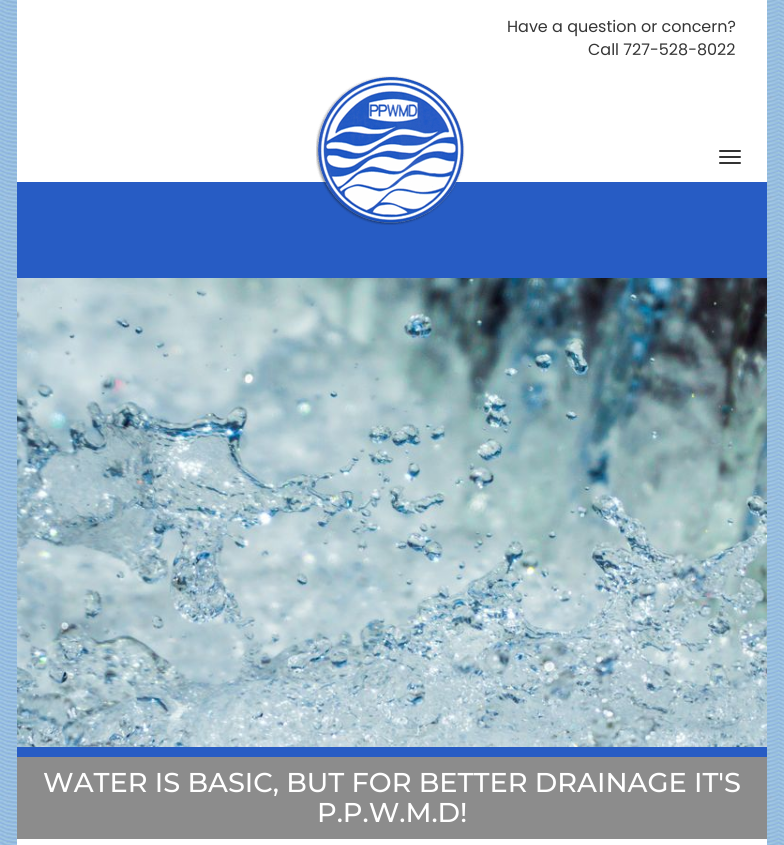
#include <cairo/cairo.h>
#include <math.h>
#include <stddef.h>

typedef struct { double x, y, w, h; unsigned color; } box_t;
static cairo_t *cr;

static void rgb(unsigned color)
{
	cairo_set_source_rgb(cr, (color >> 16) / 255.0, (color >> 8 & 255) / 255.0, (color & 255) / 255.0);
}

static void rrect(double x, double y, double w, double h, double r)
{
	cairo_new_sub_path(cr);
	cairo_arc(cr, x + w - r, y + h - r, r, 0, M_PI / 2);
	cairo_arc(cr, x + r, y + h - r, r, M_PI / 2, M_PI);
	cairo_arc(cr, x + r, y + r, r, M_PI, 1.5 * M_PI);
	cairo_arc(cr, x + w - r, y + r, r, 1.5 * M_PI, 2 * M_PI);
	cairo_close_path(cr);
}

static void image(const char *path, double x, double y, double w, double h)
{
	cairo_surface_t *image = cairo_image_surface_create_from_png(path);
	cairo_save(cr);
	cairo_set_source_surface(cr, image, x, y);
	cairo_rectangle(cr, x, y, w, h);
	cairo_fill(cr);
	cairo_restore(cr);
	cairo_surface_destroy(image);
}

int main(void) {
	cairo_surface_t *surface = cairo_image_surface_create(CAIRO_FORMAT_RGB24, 784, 845);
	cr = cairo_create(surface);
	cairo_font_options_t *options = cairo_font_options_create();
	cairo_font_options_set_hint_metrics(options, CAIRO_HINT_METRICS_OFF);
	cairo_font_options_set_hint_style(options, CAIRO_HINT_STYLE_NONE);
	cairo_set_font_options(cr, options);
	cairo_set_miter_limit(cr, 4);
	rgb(0xffffff);
	cairo_paint(cr);
	image("img/1.png", 0, 0, 784, 845);
	rgb(0xffffff);
	cairo_rectangle(cr, 17, 0, 750, 182);
	cairo_fill(cr);
	rgb(0x275cc4);
	cairo_rectangle(cr, 17, 182, 750, 96);
	cairo_fill(cr);
	image("img/2.png", 316, 76, 149, 149);
	rgb(0x333333);
	rrect(719, 150, 22, 2, 1);
	cairo_fill(cr);
	rrect(719, 156, 22, 2, 1);
	cairo_fill(cr);
	rrect(719, 162, 22, 2, 1);
	cairo_fill(cr);
	image("img/3.png", 17, 278, 750, 469);
	{
		static const box_t items[] = {
			{17, 757, 750, 82, 0x8c8c8c},
			{17, 747, 750, 10, 0x275cc4},
			{17, 839, 750, 6, 0xffffff},
		};
		for (size_t i = 0; i < sizeof items / sizeof *items; i++) {
			rgb(items[i].color);
			cairo_rectangle(cr, items[i].x, items[i].y, items[i].w, items[i].h);
			cairo_fill(cr);
		}
	}
	cairo_select_font_face(cr, "Poppins", CAIRO_FONT_SLANT_NORMAL, CAIRO_FONT_WEIGHT_NORMAL);
	cairo_set_font_size(cr, 16);
	rgb(0x353535);
	cairo_move_to(cr, 507, 32);
	cairo_show_text(cr, "Have a question or concern?");
	cairo_move_to(cr, 588, 55);
	cairo_show_text(cr, "Call 727-528-8022");
	cairo_select_font_face(cr, "Montserrat Medium", CAIRO_FONT_SLANT_NORMAL, CAIRO_FONT_WEIGHT_NORMAL);
	cairo_set_font_size(cr, 27.2);
	rgb(0xffffff);
	cairo_move_to(cr, 43, 792);
	cairo_show_text(cr, "WATER IS BASIC, BUT FOR BETTER DRAINAGE IT'S");
	cairo_move_to(cr, 317, 822);
	cairo_show_text(cr, "P.P.W.M.D!");
	cairo_surface_write_to_png(surface, "page.png");
	cairo_font_options_destroy(options);
	cairo_destroy(cr);
	cairo_surface_destroy(surface);
	return 0;
}
